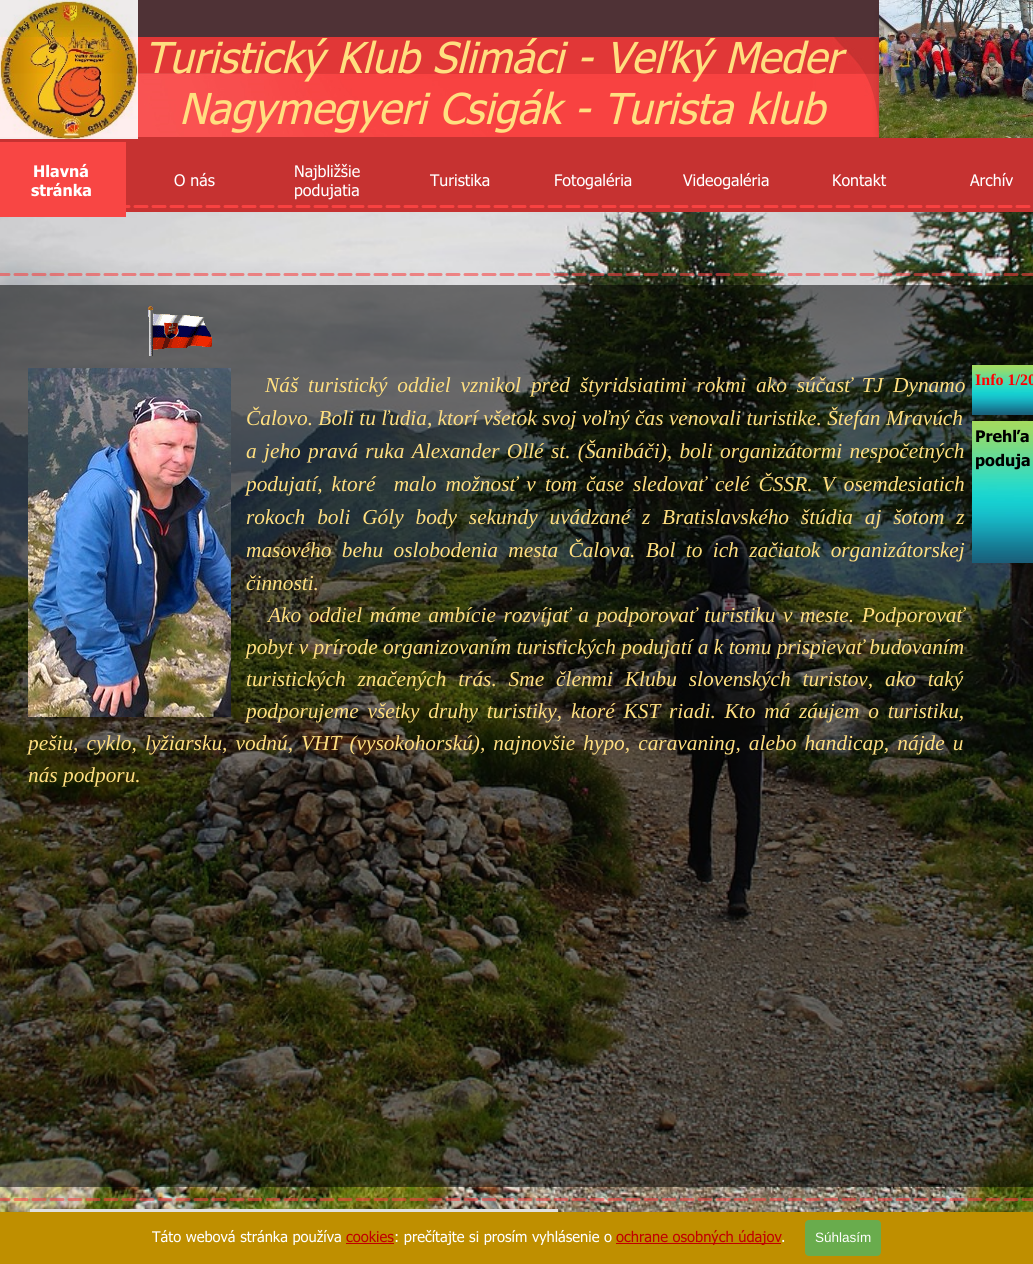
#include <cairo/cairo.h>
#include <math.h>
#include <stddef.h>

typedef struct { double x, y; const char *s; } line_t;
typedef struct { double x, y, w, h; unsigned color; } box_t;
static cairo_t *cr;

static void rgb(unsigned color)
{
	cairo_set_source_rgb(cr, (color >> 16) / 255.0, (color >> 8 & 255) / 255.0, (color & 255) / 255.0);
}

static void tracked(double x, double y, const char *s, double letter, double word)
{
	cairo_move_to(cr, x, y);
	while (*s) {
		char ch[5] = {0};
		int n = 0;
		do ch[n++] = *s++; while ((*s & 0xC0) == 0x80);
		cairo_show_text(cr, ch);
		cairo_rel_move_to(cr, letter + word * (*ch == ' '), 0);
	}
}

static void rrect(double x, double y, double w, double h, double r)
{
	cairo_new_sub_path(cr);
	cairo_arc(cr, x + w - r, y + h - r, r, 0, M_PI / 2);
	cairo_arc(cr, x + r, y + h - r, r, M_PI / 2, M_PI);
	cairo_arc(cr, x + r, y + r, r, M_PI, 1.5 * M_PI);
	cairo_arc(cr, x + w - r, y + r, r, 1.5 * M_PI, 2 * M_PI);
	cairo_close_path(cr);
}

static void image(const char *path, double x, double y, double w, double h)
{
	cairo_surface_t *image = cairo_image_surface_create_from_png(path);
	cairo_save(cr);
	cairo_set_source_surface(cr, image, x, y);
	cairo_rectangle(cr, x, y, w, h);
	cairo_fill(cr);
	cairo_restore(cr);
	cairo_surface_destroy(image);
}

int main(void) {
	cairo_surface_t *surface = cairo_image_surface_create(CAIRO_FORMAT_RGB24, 1033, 1264);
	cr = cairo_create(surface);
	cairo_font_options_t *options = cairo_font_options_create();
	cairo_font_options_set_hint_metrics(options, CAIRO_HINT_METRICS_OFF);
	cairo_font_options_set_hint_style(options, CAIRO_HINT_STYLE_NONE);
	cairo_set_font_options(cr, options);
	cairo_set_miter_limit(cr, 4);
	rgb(0xffffff);
	cairo_paint(cr);
	image("img/1.png", 0, 212, 1033, 1000);
	image("img/2.png", 0, 0, 879, 7);
	image("img/3.png", 0, 7, 1033, 288);
	image("img/4.png", 0, 0, 138, 139);
	image("img/5.png", 879, 0, 154, 138);
	rgb(0xf84644);
	cairo_rectangle(cr, 0, 142, 126, 75);
	cairo_fill(cr);
	cairo_set_source_rgba(cr, 0, 0, 0, 0.53);
	cairo_rectangle(cr, 0, 295, 1033, 863);
	cairo_fill(cr);
	image("img/6.png", 148, 306, 64, 50);
	image("img/7.png", 28, 368, 203, 349);
	image("img/8.png", 972, 365, 61, 50);
	image("img/9.png", 972, 421, 61, 142);
	image("img/10.png", 0, 1158, 1033, 43);
	{
		static const box_t items[] = {
			{30, 1209, 528, 3, 0xe0e0e0},
			{0, 1212, 1033, 52, 0xbf8f00},
			{346, 1243, 48, 1, 0xc00000},
			{616, 1243, 165, 1, 0xc00000},
		};
		for (size_t i = 0; i < sizeof items / sizeof *items; i++) {
			rgb(items[i].color);
			cairo_rectangle(cr, items[i].x, items[i].y, items[i].w, items[i].h);
			cairo_fill(cr);
		}
	}
	rgb(0x69ac4d);
	rrect(805, 1220, 76, 36, 4);
	cairo_fill(cr);
	cairo_select_font_face(cr, "Tahoma", CAIRO_FONT_SLANT_ITALIC, CAIRO_FONT_WEIGHT_NORMAL);
	cairo_set_font_size(cr, 42.7);
	rgb(0xffdf80);
	cairo_move_to(cr, 144, 73);
	cairo_show_text(cr, "Turistický Klub Slimáci - Veľký Meder");
	cairo_move_to(cr, 179, 124);
	cairo_show_text(cr, "Nagymegyeri Csigák - Turista klub");
	cairo_select_font_face(cr, "Tahoma", CAIRO_FONT_SLANT_NORMAL, CAIRO_FONT_WEIGHT_BOLD);
	cairo_set_font_size(cr, 16);
	rgb(0xffffff);
	cairo_move_to(cr, 33, 177);
	cairo_show_text(cr, "Hlavná");
	cairo_move_to(cr, 31, 196);
	cairo_show_text(cr, "stránka");
	cairo_select_font_face(cr, "Tahoma", CAIRO_FONT_SLANT_NORMAL, CAIRO_FONT_WEIGHT_NORMAL);
	{
		static const line_t items[] = {
			{174, 186, "O nás"},
			{294, 177, "Najbližšie"},
			{294, 196, "podujatia"},
			{430, 186, "Turistika"},
			{554, 186, "Fotogaléria"},
			{683, 186, "Videogaléria"},
			{832, 186, "Kontakt"},
			{970, 186, "Archív"},
		};
		for (size_t i = 0; i < sizeof items / sizeof *items; i++) {
			cairo_move_to(cr, items[i].x, items[i].y);
			cairo_show_text(cr, items[i].s);
		}
	}
	cairo_select_font_face(cr, "Liberation Serif", CAIRO_FONT_SLANT_ITALIC, CAIRO_FONT_WEIGHT_NORMAL);
	cairo_set_font_size(cr, 21.35);
	rgb(0xffdf80);
	tracked(265, 392, "Náš turistický oddiel vznikol pred štyridsiatimi rokmi ako súčasť TJ Dynamo", 0, 4.5);
	cairo_move_to(cr, 246, 425);
	cairo_show_text(cr, "Čalovo. Boli tu ľudia, ktorí všetok svoj voľný čas venovali turistike. Štefan Mravúch");
	tracked(246, 458, "a jeho pravá ruka Alexander Ollé st. (Šanibáči), boli organizátormi nespočetných", 0, 2);
	tracked(246, 491, "podujatí, ktoré  malo možnosť v tom čase sledovať celé ČSSR. V osemdesiatich", 0, 3.75);
	tracked(246, 524, "rokoch boli Góly body sekundy uvádzané z Bratislavského štúdia aj šotom z", 0, 6.5);
	tracked(246, 557, "masového behu oslobodenia mesta Čalova. Bol to ich začiatok organizátorskej", 0, 5);
	cairo_move_to(cr, 246, 590);
	cairo_show_text(cr, "činnosti.");
	tracked(268, 622, "Ako oddiel máme ambície rozvíjať a podporovať turistiku v meste. Podporovať", 0, 2.25);
	cairo_move_to(cr, 246, 654);
	cairo_show_text(cr, "pobyt v prírode organizovaním turistických podujatí a k tomu prispievať budovaním");
	tracked(246, 686, "turistických značených trás. Sme členmi Klubu slovenských turistov, ako taký", 0, 6.5);
	tracked(246, 718, "podporujeme všetky druhy turistiky, ktoré KST riadi. Kto má záujem o turistiku,", 0, 3.4);
	tracked(28, 750, "pešiu, cyklo, lyžiarsku, vodnú, VHT (vysokohorskú), najnovšie hypo, caravaning, alebo handicap, nájde u", 0, 2.75);
	cairo_move_to(cr, 28, 782);
	cairo_show_text(cr, "nás podporu.");
	cairo_select_font_face(cr, "Liberation Serif", CAIRO_FONT_SLANT_NORMAL, CAIRO_FONT_WEIGHT_BOLD);
	cairo_set_font_size(cr, 16);
	rgb(0xff0000);
	cairo_move_to(cr, 975, 385);
	cairo_show_text(cr, "Info 1/20");
	cairo_select_font_face(cr, "Tahoma", CAIRO_FONT_SLANT_NORMAL, CAIRO_FONT_WEIGHT_BOLD);
	rgb(0x000000);
	cairo_move_to(cr, 975, 442);
	cairo_show_text(cr, "Prehľa");
	cairo_move_to(cr, 975, 466);
	cairo_show_text(cr, "poduja");
	cairo_select_font_face(cr, "Tahoma", CAIRO_FONT_SLANT_NORMAL, CAIRO_FONT_WEIGHT_NORMAL);
	cairo_set_font_size(cr, 14.7);
	rgb(0xffffff);
	cairo_move_to(cr, 152, 1242);
	cairo_show_text(cr, "Táto webová stránka používa");
	rgb(0xc00000);
	cairo_move_to(cr, 346, 1242);
	cairo_show_text(cr, "cookies");
	rgb(0xffffff);
	cairo_move_to(cr, 394, 1242);
	cairo_show_text(cr, ": prečítajte si prosím vyhlásenie o");
	rgb(0xc00000);
	cairo_move_to(cr, 616, 1242);
	cairo_show_text(cr, "ochrane osobných údajov");
	rgb(0xffffff);
	cairo_move_to(cr, 781, 1242);
	cairo_show_text(cr, ".");
	cairo_select_font_face(cr, "Liberation Sans", CAIRO_FONT_SLANT_NORMAL, CAIRO_FONT_WEIGHT_NORMAL);
	cairo_set_font_size(cr, 13.5);
	cairo_move_to(cr, 815, 1242);
	cairo_show_text(cr, "Súhlasím");
	cairo_surface_write_to_png(surface, "page.png");
	cairo_font_options_destroy(options);
	cairo_destroy(cr);
	cairo_surface_destroy(surface);
	return 0;
}
